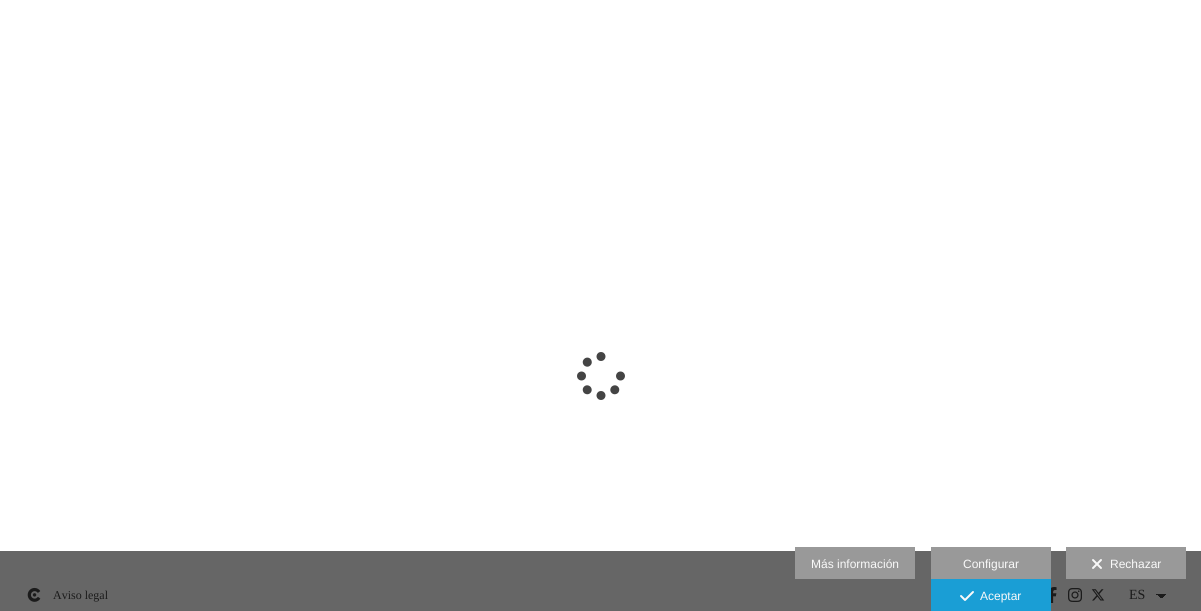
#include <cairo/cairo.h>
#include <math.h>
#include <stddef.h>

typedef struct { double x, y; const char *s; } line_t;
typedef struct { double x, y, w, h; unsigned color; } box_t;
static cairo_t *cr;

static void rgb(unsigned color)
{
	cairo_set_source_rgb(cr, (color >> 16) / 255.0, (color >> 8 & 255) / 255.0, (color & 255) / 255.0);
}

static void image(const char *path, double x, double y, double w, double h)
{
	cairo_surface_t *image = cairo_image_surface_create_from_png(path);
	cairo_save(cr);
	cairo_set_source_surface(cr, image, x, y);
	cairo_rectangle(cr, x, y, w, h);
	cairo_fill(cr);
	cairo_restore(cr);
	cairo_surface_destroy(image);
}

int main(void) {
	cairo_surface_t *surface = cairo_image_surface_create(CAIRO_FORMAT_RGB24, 1201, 611);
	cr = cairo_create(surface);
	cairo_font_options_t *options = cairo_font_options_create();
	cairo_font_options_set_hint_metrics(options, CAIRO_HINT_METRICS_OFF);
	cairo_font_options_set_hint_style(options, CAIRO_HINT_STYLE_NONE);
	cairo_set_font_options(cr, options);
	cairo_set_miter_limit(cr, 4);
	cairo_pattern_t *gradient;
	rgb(0xffffff);
	cairo_paint(cr);
	{
		static const box_t items[] = {
			{0, 551, 1201, 60, 0x666666},
			{795, 547, 120, 32, 0x999999},
			{931, 547, 120, 32, 0x999999},
			{1066, 547, 120, 32, 0x999999},
		};
		for (size_t i = 0; i < sizeof items / sizeof *items; i++) {
			rgb(items[i].color);
			cairo_rectangle(cr, items[i].x, items[i].y, items[i].w, items[i].h);
			cairo_fill(cr);
		}
	}
	image("img/1.png", 1092, 559, 10, 10);
	rgb(0x1a9ed5);
	cairo_rectangle(cr, 931, 579, 120, 32);
	cairo_fill(cr);
	image("img/2.png", 960, 591, 14, 10);
	image("img/3.png", 577, 352, 48, 48);
	image("img/4.png", 27, 587, 14, 15);
	image("img/5.png", 1051, 587, 6, 16);
	image("img/6.png", 1068, 588, 14, 14);
	image("img/7.png", 1091, 589, 14, 12);
	gradient = cairo_pattern_create_linear(1161, 594, 1166, 599);
	cairo_pattern_add_color_stop_rgba(gradient, 0.5, 0.106, 0.106, 0.106, 1);
	cairo_pattern_add_color_stop_rgba(gradient, 0.5, 0.4, 0.4, 0.4, 1);
	cairo_set_source(cr, gradient);
	cairo_pattern_destroy(gradient);
	cairo_rectangle(cr, 1161, 594, 5, 4);
	cairo_fill(cr);
	gradient = cairo_pattern_create_linear(1156, 599, 1161, 594);
	cairo_pattern_add_color_stop_rgba(gradient, 0.5, 0.4, 0.4, 0.4, 1);
	cairo_pattern_add_color_stop_rgba(gradient, 0.5, 0.106, 0.106, 0.106, 1);
	cairo_set_source(cr, gradient);
	cairo_pattern_destroy(gradient);
	cairo_rectangle(cr, 1156, 594, 5, 4);
	cairo_fill(cr);
	cairo_select_font_face(cr, "Liberation Sans", CAIRO_FONT_SLANT_NORMAL, CAIRO_FONT_WEIGHT_NORMAL);
	cairo_set_font_size(cr, 12);
	rgb(0xf9f9f9);
	{
		static const line_t items[] = {
			{811, 568, "Más información"},
			{963, 568, "Configurar"},
			{1110, 568, "Rechazar"},
			{980, 600, "Aceptar"},
		};
		for (size_t i = 0; i < sizeof items / sizeof *items; i++) {
			cairo_move_to(cr, items[i].x, items[i].y);
			cairo_show_text(cr, items[i].s);
		}
	}
	cairo_select_font_face(cr, "Liberation Serif", CAIRO_FONT_SLANT_NORMAL, CAIRO_FONT_WEIGHT_NORMAL);
	rgb(0x1b1b1b);
	cairo_move_to(cr, 53, 599);
	cairo_show_text(cr, "Aviso legal");
	cairo_set_font_size(cr, 14);
	cairo_move_to(cr, 1129, 599);
	cairo_show_text(cr, "ES");
	cairo_surface_write_to_png(surface, "page.png");
	cairo_font_options_destroy(options);
	cairo_destroy(cr);
	cairo_surface_destroy(surface);
	return 0;
}
